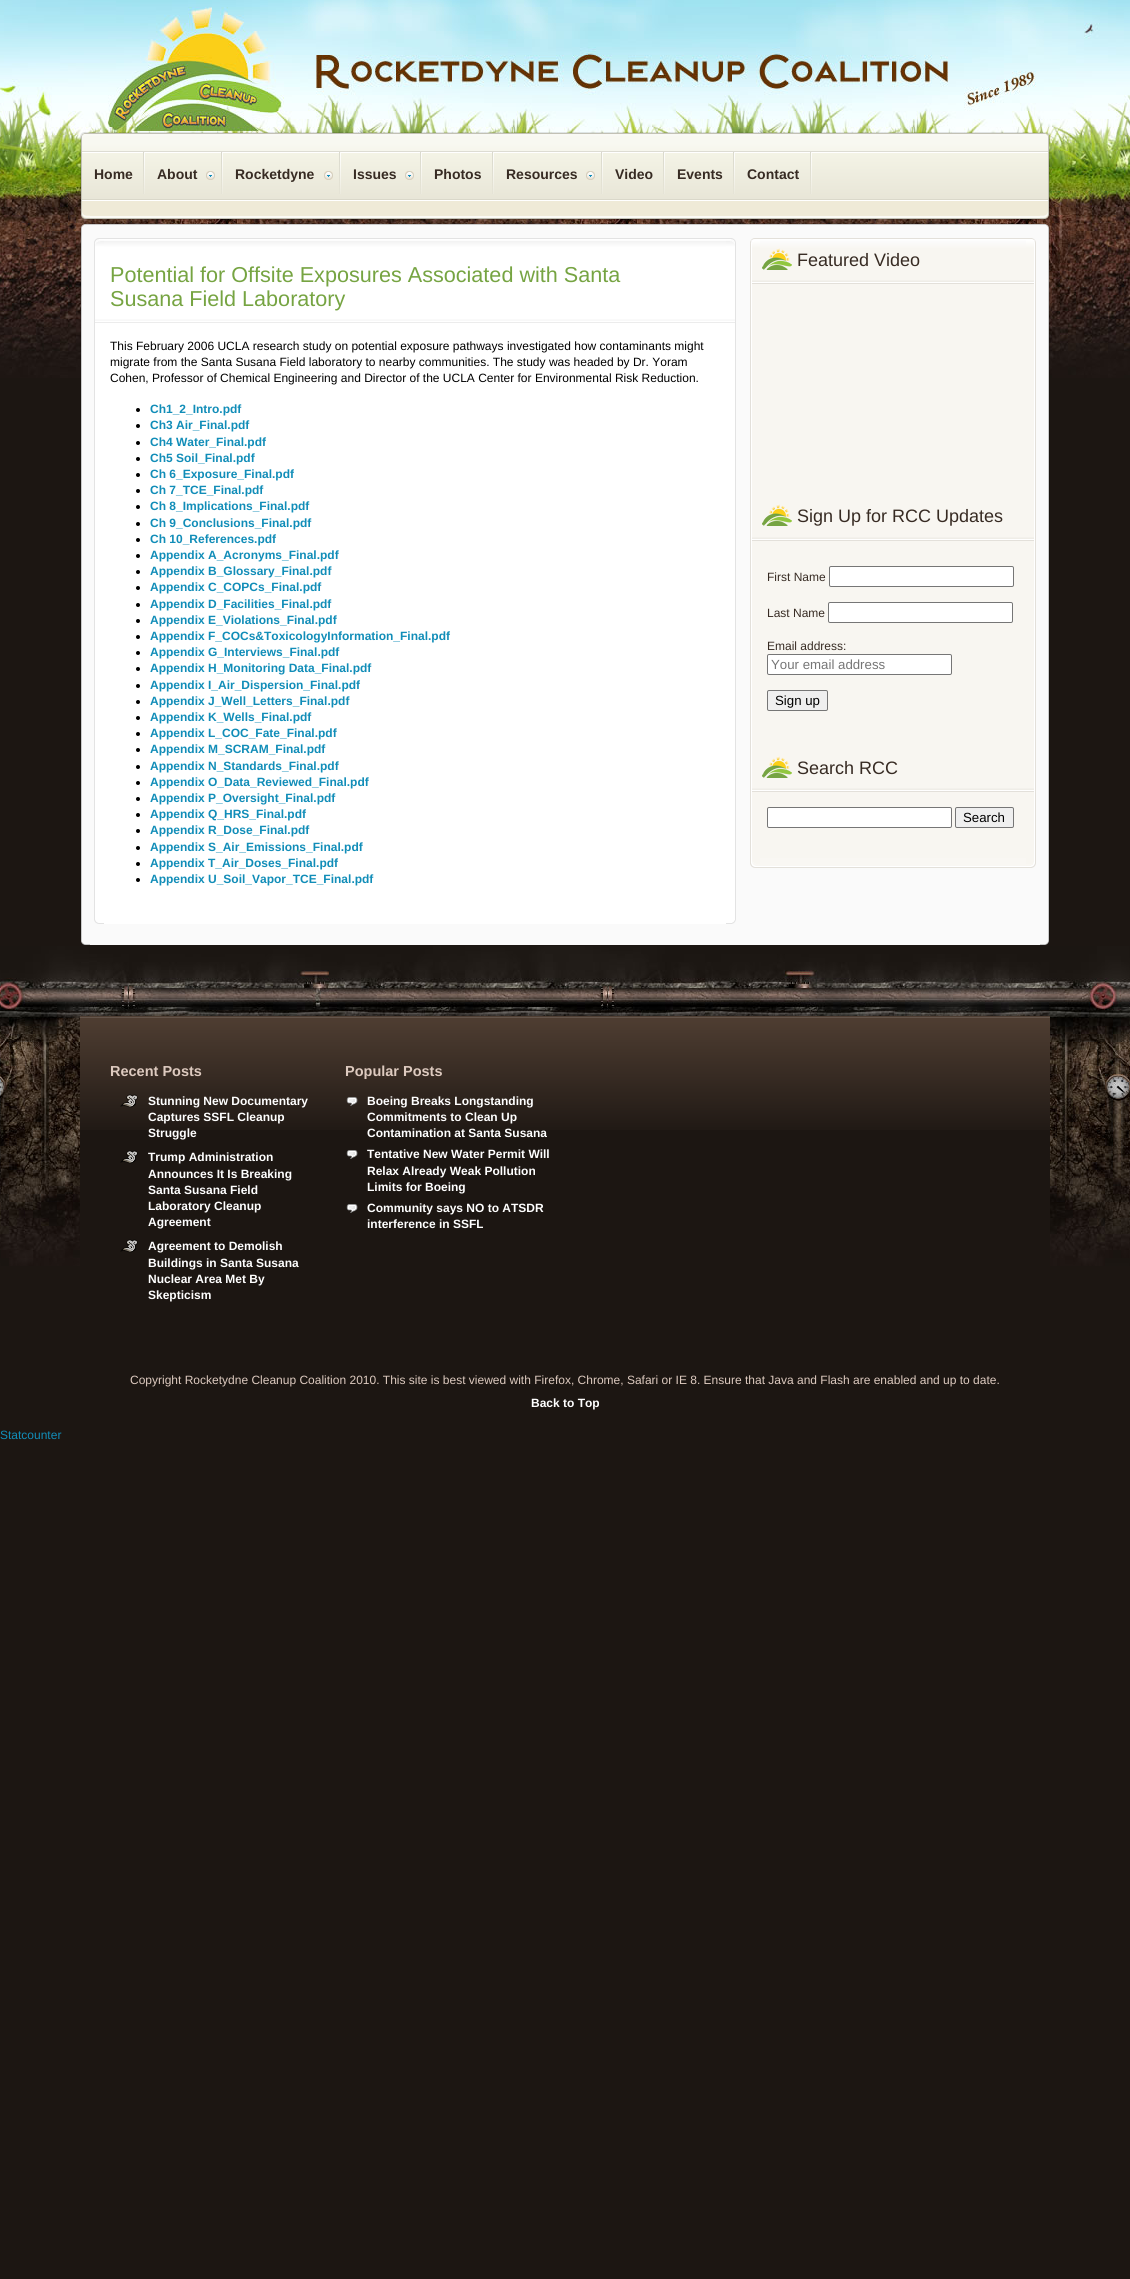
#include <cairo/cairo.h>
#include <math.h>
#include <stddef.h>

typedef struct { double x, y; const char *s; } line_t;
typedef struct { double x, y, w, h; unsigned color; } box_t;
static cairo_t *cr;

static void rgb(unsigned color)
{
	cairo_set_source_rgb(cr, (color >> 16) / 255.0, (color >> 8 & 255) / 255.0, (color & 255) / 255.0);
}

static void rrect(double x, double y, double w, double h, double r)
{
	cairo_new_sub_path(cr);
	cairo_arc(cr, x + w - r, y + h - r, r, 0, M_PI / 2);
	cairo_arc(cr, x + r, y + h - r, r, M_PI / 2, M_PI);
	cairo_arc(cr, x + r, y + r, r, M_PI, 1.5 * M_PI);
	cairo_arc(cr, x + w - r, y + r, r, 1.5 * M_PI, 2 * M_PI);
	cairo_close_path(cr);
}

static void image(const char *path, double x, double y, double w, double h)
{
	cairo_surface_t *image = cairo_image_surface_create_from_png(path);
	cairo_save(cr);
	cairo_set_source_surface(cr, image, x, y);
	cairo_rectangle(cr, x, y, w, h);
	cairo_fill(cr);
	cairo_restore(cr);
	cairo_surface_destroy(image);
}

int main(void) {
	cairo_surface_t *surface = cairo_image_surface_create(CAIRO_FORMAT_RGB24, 1130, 2279);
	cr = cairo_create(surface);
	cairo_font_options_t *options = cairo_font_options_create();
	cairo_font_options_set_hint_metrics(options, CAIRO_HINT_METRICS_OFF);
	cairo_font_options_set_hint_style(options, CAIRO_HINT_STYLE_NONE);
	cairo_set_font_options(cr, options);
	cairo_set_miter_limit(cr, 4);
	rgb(0x1c1612);
	cairo_paint(cr);
	image("img/1.png", 0, 0, 1130, 378);
	image("img/2.png", 90, 132, 950, 10);
	image("img/3.png", 80, 132, 10, 10);
	image("img/4.png", 1040, 132, 10, 10);
	rgb(0xefead7);
	cairo_rectangle(cr, 82, 201, 966, 9);
	cairo_fill(cr);
	image("img/5.png", 82, 142, 966, 9);
	image("img/6.png", 80, 142, 2, 68);
	image("img/7.png", 1048, 142, 2, 68);
	image("img/8.png", 82, 151, 966, 50);
	image("img/9.png", 143, 152, 2, 42);
	image("img/9.png", 221, 152, 2, 42);
	image("img/10.png", 206, 171, 9, 9);
	image("img/9.png", 339, 152, 2, 42);
	image("img/10.png", 324, 171, 9, 9);
	image("img/9.png", 420, 152, 2, 42);
	image("img/10.png", 405, 171, 9, 9);
	image("img/9.png", 492, 152, 2, 42);
	image("img/9.png", 601, 152, 2, 42);
	image("img/10.png", 586, 171, 9, 9);
	image("img/9.png", 663, 152, 2, 42);
	image("img/9.png", 733, 152, 2, 42);
	image("img/9.png", 810, 152, 2, 42);
	image("img/11.png", 90, 210, 950, 10);
	image("img/12.png", 80, 210, 10, 10);
	image("img/13.png", 1040, 210, 10, 10);
	image("img/14.png", 90, 223, 950, 10);
	image("img/15.png", 80, 223, 10, 10);
	image("img/16.png", 1040, 223, 10, 10);
	rgb(0xfafafa);
	cairo_rectangle(cr, 82, 233, 966, 703);
	cairo_fill(cr);
	image("img/17.png", 80, 233, 2, 703);
	image("img/18.png", 1048, 233, 2, 703);
	image("img/19.png", 104, 238, 622, 10);
	image("img/20.png", 94, 238, 10, 10);
	image("img/21.png", 726, 238, 10, 10);
	{
		static const box_t items[] = {
			{95, 248, 640, 666, 0xffffff},
			{735, 248, 1, 666, 0xe3e3e3},
			{94, 248, 1, 666, 0xe3e3e3},
		};
		for (size_t i = 0; i < sizeof items / sizeof *items; i++) {
			rgb(items[i].color);
			cairo_rectangle(cr, items[i].x, items[i].y, items[i].w, items[i].h);
			cairo_fill(cr);
		}
	}
	image("img/22.png", 95, 319, 640, 4);
	rgb(0x000000);
	cairo_arc(cr, 138, 410, 2, 0, 2 * M_PI);
	cairo_fill(cr);
	cairo_arc(cr, 138, 426, 2, 0, 2 * M_PI);
	cairo_fill(cr);
	cairo_arc(cr, 138, 443, 2, 0, 2 * M_PI);
	cairo_fill(cr);
	cairo_arc(cr, 138, 459, 2, 0, 2 * M_PI);
	cairo_fill(cr);
	cairo_arc(cr, 138, 475, 2, 0, 2 * M_PI);
	cairo_fill(cr);
	cairo_arc(cr, 138, 491, 2, 0, 2 * M_PI);
	cairo_fill(cr);
	cairo_arc(cr, 138, 507, 2, 0, 2 * M_PI);
	cairo_fill(cr);
	cairo_arc(cr, 138, 524, 2, 0, 2 * M_PI);
	cairo_fill(cr);
	cairo_arc(cr, 138, 540, 2, 0, 2 * M_PI);
	cairo_fill(cr);
	cairo_arc(cr, 138, 556, 2, 0, 2 * M_PI);
	cairo_fill(cr);
	cairo_arc(cr, 138, 572, 2, 0, 2 * M_PI);
	cairo_fill(cr);
	cairo_arc(cr, 138, 588, 2, 0, 2 * M_PI);
	cairo_fill(cr);
	cairo_arc(cr, 138, 605, 2, 0, 2 * M_PI);
	cairo_fill(cr);
	cairo_arc(cr, 138, 621, 2, 0, 2 * M_PI);
	cairo_fill(cr);
	cairo_arc(cr, 138, 637, 2, 0, 2 * M_PI);
	cairo_fill(cr);
	cairo_arc(cr, 138, 653, 2, 0, 2 * M_PI);
	cairo_fill(cr);
	cairo_arc(cr, 138, 669, 2, 0, 2 * M_PI);
	cairo_fill(cr);
	cairo_arc(cr, 138, 686, 2, 0, 2 * M_PI);
	cairo_fill(cr);
	cairo_arc(cr, 138, 702, 2, 0, 2 * M_PI);
	cairo_fill(cr);
	cairo_arc(cr, 138, 718, 2, 0, 2 * M_PI);
	cairo_fill(cr);
	cairo_arc(cr, 138, 734, 2, 0, 2 * M_PI);
	cairo_fill(cr);
	cairo_arc(cr, 138, 750, 2, 0, 2 * M_PI);
	cairo_fill(cr);
	cairo_arc(cr, 138, 767, 2, 0, 2 * M_PI);
	cairo_fill(cr);
	cairo_arc(cr, 138, 783, 2, 0, 2 * M_PI);
	cairo_fill(cr);
	cairo_arc(cr, 138, 799, 2, 0, 2 * M_PI);
	cairo_fill(cr);
	cairo_arc(cr, 138, 815, 2, 0, 2 * M_PI);
	cairo_fill(cr);
	cairo_arc(cr, 138, 831, 2, 0, 2 * M_PI);
	cairo_fill(cr);
	cairo_arc(cr, 138, 848, 2, 0, 2 * M_PI);
	cairo_fill(cr);
	cairo_arc(cr, 138, 864, 2, 0, 2 * M_PI);
	cairo_fill(cr);
	cairo_arc(cr, 138, 880, 2, 0, 2 * M_PI);
	cairo_fill(cr);
	rgb(0xffffff);
	cairo_rectangle(cr, 104, 914, 622, 10);
	cairo_fill(cr);
	image("img/23.png", 94, 914, 10, 10);
	image("img/24.png", 726, 914, 10, 10);
	image("img/25.png", 760, 238, 266, 10);
	image("img/26.png", 750, 238, 10, 10);
	image("img/27.png", 1026, 238, 10, 10);
	rgb(0xf8f6f1);
	cairo_rectangle(cr, 752, 248, 282, 610);
	cairo_fill(cr);
	image("img/28.png", 750, 248, 2, 610);
	image("img/29.png", 1034, 248, 2, 610);
	image("img/30.png", 762, 248, 30, 22);
	image("img/31.png", 752, 280, 282, 4);
	image("img/30.png", 762, 504, 30, 22);
	image("img/31.png", 752, 537, 282, 4);
	rgb(0xffffff);
	rrect(829.5, 566.5, 184, 20, 1.5);
	cairo_fill_preserve(cr);
	rgb(0x767676);
	cairo_set_line_width(cr, 1);
	cairo_stroke(cr);
	rgb(0xffffff);
	rrect(828.5, 602.5, 184, 20, 1.5);
	cairo_fill_preserve(cr);
	rgb(0x767676);
	cairo_stroke(cr);
	rgb(0xffffff);
	rrect(767.5, 654.5, 184, 20, 1.5);
	cairo_fill_preserve(cr);
	rgb(0x767676);
	cairo_stroke(cr);
	rgb(0xefefef);
	rrect(767.5, 690.5, 60, 20, 1.5);
	cairo_fill_preserve(cr);
	rgb(0x767676);
	cairo_stroke(cr);
	image("img/30.png", 762, 756, 30, 22);
	image("img/31.png", 752, 788, 282, 4);
	rgb(0xffffff);
	rrect(767.5, 807.5, 184, 20, 1.5);
	cairo_fill_preserve(cr);
	rgb(0x767676);
	cairo_stroke(cr);
	rgb(0xefefef);
	rrect(955.5, 807.5, 58, 20, 1.5);
	cairo_fill_preserve(cr);
	rgb(0x767676);
	cairo_stroke(cr);
	image("img/32.png", 760, 858, 266, 10);
	image("img/33.png", 750, 858, 10, 10);
	image("img/34.png", 1026, 858, 10, 10);
	rgb(0xfafafa);
	cairo_rectangle(cr, 90, 936, 950, 9);
	cairo_fill(cr);
	image("img/35.png", 81, 936, 9, 9);
	image("img/36.png", 1040, 936, 9, 9);
	image("img/37.png", 0, 946, 1130, 320);
	rgb(0x1c1612);
	cairo_rectangle(cr, 80, 1130, 970, 136);
	cairo_fill(cr);
	image("img/38.png", 80, 1016, 970, 114);
	image("img/39.png", 120, 1094, 18, 14);
	image("img/40.png", 120, 1150, 18, 14);
	image("img/40.png", 120, 1239, 18, 14);
	image("img/41.png", 346, 1097, 12, 9);
	image("img/42.png", 346, 1150, 12, 9);
	image("img/42.png", 346, 1204, 12, 9);
	cairo_select_font_face(cr, "Liberation Sans", CAIRO_FONT_SLANT_NORMAL, CAIRO_FONT_WEIGHT_BOLD);
	cairo_set_font_size(cr, 14);
	rgb(0x372b23);
	{
		static const line_t items[] = {
			{94, 179, "Home"},
			{157, 179, "About"},
			{235, 179, "Rocketdyne"},
			{353, 179, "Issues"},
			{434, 179, "Photos"},
			{506, 179, "Resources"},
			{615, 179, "Video"},
			{677, 179, "Events"},
			{747, 179, "Contact"},
		};
		for (size_t i = 0; i < sizeof items / sizeof *items; i++) {
			cairo_move_to(cr, items[i].x, items[i].y);
			cairo_show_text(cr, items[i].s);
		}
	}
	cairo_select_font_face(cr, "Liberation Sans", CAIRO_FONT_SLANT_NORMAL, CAIRO_FONT_WEIGHT_NORMAL);
	cairo_set_font_size(cr, 21.6);
	rgb(0x76a442);
	cairo_move_to(cr, 110, 282);
	cairo_show_text(cr, "Potential for Offsite Exposures Associated with Santa");
	cairo_move_to(cr, 110, 306);
	cairo_show_text(cr, "Susana Field Laboratory");
	cairo_set_font_size(cr, 12);
	rgb(0x000000);
	{
		static const line_t items[] = {
			{110, 350, "This February 2006 UCLA research study on potential exposure pathways investigated how contaminants might"},
			{110, 366, "migrate from the Santa Susana Field laboratory to nearby communities. The study was headed by Dr. Yoram"},
			{110, 382, "Cohen, Professor of Chemical Engineering and Director of the UCLA Center for Environmental Risk Reduction."},
		};
		for (size_t i = 0; i < sizeof items / sizeof *items; i++) {
			cairo_move_to(cr, items[i].x, items[i].y);
			cairo_show_text(cr, items[i].s);
		}
	}
	cairo_select_font_face(cr, "Liberation Sans", CAIRO_FONT_SLANT_NORMAL, CAIRO_FONT_WEIGHT_BOLD);
	rgb(0x118db8);
	{
		static const line_t items[] = {
			{150, 413, "Ch1_2_Intro.pdf"},
			{150, 429, "Ch3 Air_Final.pdf"},
			{150, 446, "Ch4 Water_Final.pdf"},
			{150, 462, "Ch5 Soil_Final.pdf"},
			{150, 478, "Ch 6_Exposure_Final.pdf"},
			{150, 494, "Ch 7_TCE_Final.pdf"},
			{150, 510, "Ch 8_Implications_Final.pdf"},
			{150, 527, "Ch 9_Conclusions_Final.pdf"},
			{150, 543, "Ch 10_References.pdf"},
			{150, 559, "Appendix A_Acronyms_Final.pdf"},
			{150, 575, "Appendix B_Glossary_Final.pdf"},
			{150, 591, "Appendix C_COPCs_Final.pdf"},
			{150, 608, "Appendix D_Facilities_Final.pdf"},
			{150, 624, "Appendix E_Violations_Final.pdf"},
			{150, 640, "Appendix F_COCs&ToxicologyInformation_Final.pdf"},
			{150, 656, "Appendix G_Interviews_Final.pdf"},
			{150, 672, "Appendix H_Monitoring Data_Final.pdf"},
			{150, 689, "Appendix I_Air_Dispersion_Final.pdf"},
			{150, 705, "Appendix J_Well_Letters_Final.pdf"},
			{150, 721, "Appendix K_Wells_Final.pdf"},
			{150, 737, "Appendix L_COC_Fate_Final.pdf"},
			{150, 753, "Appendix M_SCRAM_Final.pdf"},
			{150, 770, "Appendix N_Standards_Final.pdf"},
			{150, 786, "Appendix O_Data_Reviewed_Final.pdf"},
			{150, 802, "Appendix P_Oversight_Final.pdf"},
			{150, 818, "Appendix Q_HRS_Final.pdf"},
			{150, 834, "Appendix R_Dose_Final.pdf"},
			{150, 851, "Appendix S_Air_Emissions_Final.pdf"},
			{150, 867, "Appendix T_Air_Doses_Final.pdf"},
			{150, 883, "Appendix U_Soil_Vapor_TCE_Final.pdf"},
		};
		for (size_t i = 0; i < sizeof items / sizeof *items; i++) {
			cairo_move_to(cr, items[i].x, items[i].y);
			cairo_show_text(cr, items[i].s);
		}
	}
	cairo_select_font_face(cr, "Liberation Sans", CAIRO_FONT_SLANT_NORMAL, CAIRO_FONT_WEIGHT_NORMAL);
	cairo_set_font_size(cr, 18);
	rgb(0x372b23);
	cairo_move_to(cr, 797, 266);
	cairo_show_text(cr, "Featured Video");
	cairo_move_to(cr, 797, 522);
	cairo_show_text(cr, "Sign Up for RCC Updates");
	cairo_set_font_size(cr, 12);
	{
		static const line_t items[] = {
			{767, 581, "First Name"},
			{767, 617, "Last Name"},
			{767, 650, "Email address:"},
		};
		for (size_t i = 0; i < sizeof items / sizeof *items; i++) {
			cairo_move_to(cr, items[i].x, items[i].y);
			cairo_show_text(cr, items[i].s);
		}
	}
	cairo_set_font_size(cr, 13.25);
	rgb(0x757575);
	cairo_move_to(cr, 771, 669);
	cairo_show_text(cr, "Your email address");
	rgb(0x000000);
	cairo_move_to(cr, 775, 705);
	cairo_show_text(cr, "Sign up");
	cairo_set_font_size(cr, 18);
	rgb(0x372b23);
	cairo_move_to(cr, 797, 774);
	cairo_show_text(cr, "Search RCC");
	cairo_set_font_size(cr, 13.25);
	rgb(0x000000);
	cairo_move_to(cr, 963, 822);
	cairo_show_text(cr, "Search");
	cairo_select_font_face(cr, "Liberation Sans", CAIRO_FONT_SLANT_NORMAL, CAIRO_FONT_WEIGHT_BOLD);
	cairo_set_font_size(cr, 14.5);
	rgb(0xddcabf);
	cairo_move_to(cr, 110, 1076);
	cairo_show_text(cr, "Recent Posts");
	cairo_set_font_size(cr, 12);
	rgb(0xffffff);
	{
		static const line_t items[] = {
			{148, 1105, "Stunning New Documentary"},
			{148, 1121, "Captures SSFL Cleanup"},
			{148, 1137, "Struggle"},
			{148, 1161, "Trump Administration"},
			{148, 1178, "Announces It Is Breaking"},
			{148, 1194, "Santa Susana Field"},
			{148, 1210, "Laboratory Cleanup"},
			{148, 1226, "Agreement"},
			{148, 1250, "Agreement to Demolish"},
			{148, 1267, "Buildings in Santa Susana"},
			{148, 1283, "Nuclear Area Met By"},
			{148, 1299, "Skepticism"},
		};
		for (size_t i = 0; i < sizeof items / sizeof *items; i++) {
			cairo_move_to(cr, items[i].x, items[i].y);
			cairo_show_text(cr, items[i].s);
		}
	}
	cairo_set_font_size(cr, 14.5);
	rgb(0xddcabf);
	cairo_move_to(cr, 345, 1076);
	cairo_show_text(cr, "Popular Posts");
	cairo_set_font_size(cr, 12);
	rgb(0xffffff);
	{
		static const line_t items[] = {
			{367, 1105, "Boeing Breaks Longstanding"},
			{367, 1121, "Commitments to Clean Up"},
			{367, 1137, "Contamination at Santa Susana"},
			{367, 1158, "Tentative New Water Permit Will"},
			{367, 1175, "Relax Already Weak Pollution"},
			{367, 1191, "Limits for Boeing"},
			{367, 1212, "Community says NO to ATSDR"},
			{367, 1228, "interference in SSFL"},
		};
		for (size_t i = 0; i < sizeof items / sizeof *items; i++) {
			cairo_move_to(cr, items[i].x, items[i].y);
			cairo_show_text(cr, items[i].s);
		}
	}
	cairo_select_font_face(cr, "Liberation Sans", CAIRO_FONT_SLANT_NORMAL, CAIRO_FONT_WEIGHT_NORMAL);
	rgb(0xddcabf);
	cairo_move_to(cr, 130, 1384);
	cairo_show_text(cr, "Copyright Rocketydne Cleanup Coalition 2010. This site is best viewed with Firefox, Chrome, Safari or IE 8. Ensure that Java and Flash are enabled and up to date.");
	cairo_select_font_face(cr, "Liberation Sans", CAIRO_FONT_SLANT_NORMAL, CAIRO_FONT_WEIGHT_BOLD);
	rgb(0xffffff);
	cairo_move_to(cr, 531, 1407);
	cairo_show_text(cr, "Back to Top");
	cairo_select_font_face(cr, "Liberation Sans", CAIRO_FONT_SLANT_NORMAL, CAIRO_FONT_WEIGHT_NORMAL);
	rgb(0x118db8);
	cairo_move_to(cr, 0, 1439);
	cairo_show_text(cr, "Statcounter");
	cairo_surface_write_to_png(surface, "page.png");
	cairo_font_options_destroy(options);
	cairo_destroy(cr);
	cairo_surface_destroy(surface);
	return 0;
}
